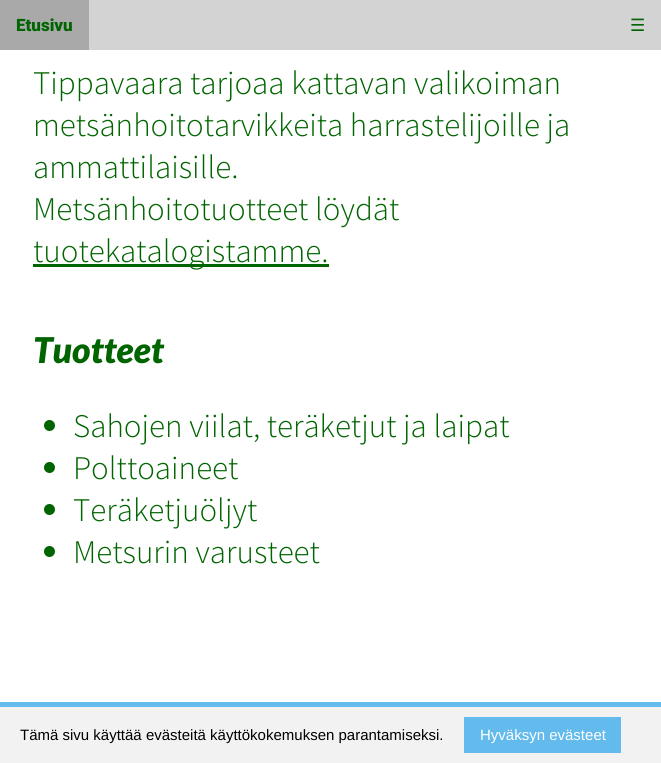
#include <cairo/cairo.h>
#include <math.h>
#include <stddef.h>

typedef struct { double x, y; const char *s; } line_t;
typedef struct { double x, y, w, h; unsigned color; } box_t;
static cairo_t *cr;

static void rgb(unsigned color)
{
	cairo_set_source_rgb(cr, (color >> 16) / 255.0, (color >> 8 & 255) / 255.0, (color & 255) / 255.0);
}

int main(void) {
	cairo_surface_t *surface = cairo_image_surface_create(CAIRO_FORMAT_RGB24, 661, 763);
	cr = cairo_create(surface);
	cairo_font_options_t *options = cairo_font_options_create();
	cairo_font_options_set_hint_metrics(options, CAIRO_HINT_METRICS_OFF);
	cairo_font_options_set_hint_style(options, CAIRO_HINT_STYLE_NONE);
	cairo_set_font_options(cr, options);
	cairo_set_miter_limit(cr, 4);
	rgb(0xffffff);
	cairo_paint(cr);
	{
		static const box_t items[] = {
			{89, 0, 572, 50, 0xd3d3d3},
			{0, 0, 89, 50, 0xa9a9a9},
			{33, 264, 296, 3, 0x006400},
		};
		for (size_t i = 0; i < sizeof items / sizeof *items; i++) {
			rgb(items[i].color);
			cairo_rectangle(cr, items[i].x, items[i].y, items[i].w, items[i].h);
			cairo_fill(cr);
		}
	}
	cairo_arc(cr, 49.5, 425.5, 5.5, 0, 2 * M_PI);
	cairo_fill(cr);
	cairo_arc(cr, 49.5, 467.5, 5.5, 0, 2 * M_PI);
	cairo_fill(cr);
	cairo_arc(cr, 49.5, 509.5, 5.5, 0, 2 * M_PI);
	cairo_fill(cr);
	cairo_arc(cr, 49.5, 551.5, 5.5, 0, 2 * M_PI);
	cairo_fill(cr);
	{
		static const box_t items[] = {
			{0, 707, 661, 56, 0xf2f2f2},
			{0, 702, 661, 5, 0x62baed},
			{464, 717, 157, 36, 0x62baed},
		};
		for (size_t i = 0; i < sizeof items / sizeof *items; i++) {
			rgb(items[i].color);
			cairo_rectangle(cr, items[i].x, items[i].y, items[i].w, items[i].h);
			cairo_fill(cr);
		}
	}
	cairo_select_font_face(cr, "Roboto Black", CAIRO_FONT_SLANT_NORMAL, CAIRO_FONT_WEIGHT_NORMAL);
	cairo_set_font_size(cr, 17);
	rgb(0x006400);
	cairo_move_to(cr, 16, 31);
	cairo_show_text(cr, "Etusivu");
	cairo_select_font_face(cr, "DejaVu Sans", CAIRO_FONT_SLANT_NORMAL, CAIRO_FONT_WEIGHT_NORMAL);
	cairo_move_to(cr, 630, 31);
	cairo_show_text(cr, "☰");
	cairo_select_font_face(cr, "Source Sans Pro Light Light", CAIRO_FONT_SLANT_NORMAL, CAIRO_FONT_WEIGHT_NORMAL);
	cairo_set_font_size(cr, 33);
	{
		static const line_t items[] = {
			{33, 94, "Tippavaara tarjoaa kattavan valikoiman"},
			{33, 136, "metsänhoitotarvikkeita harrastelijoille ja"},
			{33, 178, "ammattilaisille."},
			{33, 220, "Metsänhoitotuotteet löydät"},
			{33, 262, "tuotekatalogistamme."},
		};
		for (size_t i = 0; i < sizeof items / sizeof *items; i++) {
			cairo_move_to(cr, items[i].x, items[i].y);
			cairo_show_text(cr, items[i].s);
		}
	}
	cairo_select_font_face(cr, "Lato Black", CAIRO_FONT_SLANT_ITALIC, CAIRO_FONT_WEIGHT_NORMAL);
	cairo_set_font_size(cr, 35.5);
	cairo_move_to(cr, 33, 363);
	cairo_show_text(cr, "Tuotteet");
	cairo_select_font_face(cr, "Source Sans Pro Light Light", CAIRO_FONT_SLANT_NORMAL, CAIRO_FONT_WEIGHT_NORMAL);
	cairo_set_font_size(cr, 33);
	{
		static const line_t items[] = {
			{73, 437, "Sahojen viilat, teräketjut ja laipat"},
			{73, 479, "Polttoaineet"},
			{73, 521, "Teräketjuöljyt"},
			{73, 563, "Metsurin varusteet"},
		};
		for (size_t i = 0; i < sizeof items / sizeof *items; i++) {
			cairo_move_to(cr, items[i].x, items[i].y);
			cairo_show_text(cr, items[i].s);
		}
	}
	cairo_select_font_face(cr, "Liberation Sans", CAIRO_FONT_SLANT_NORMAL, CAIRO_FONT_WEIGHT_NORMAL);
	cairo_set_font_size(cr, 15);
	rgb(0x000000);
	cairo_move_to(cr, 20, 740);
	cairo_show_text(cr, "Tämä sivu käyttää evästeitä käyttökokemuksen parantamiseksi.");
	rgb(0xffffff);
	cairo_move_to(cr, 480, 740);
	cairo_show_text(cr, "Hyväksyn evästeet");
	cairo_surface_write_to_png(surface, "page.png");
	cairo_font_options_destroy(options);
	cairo_destroy(cr);
	cairo_surface_destroy(surface);
	return 0;
}
